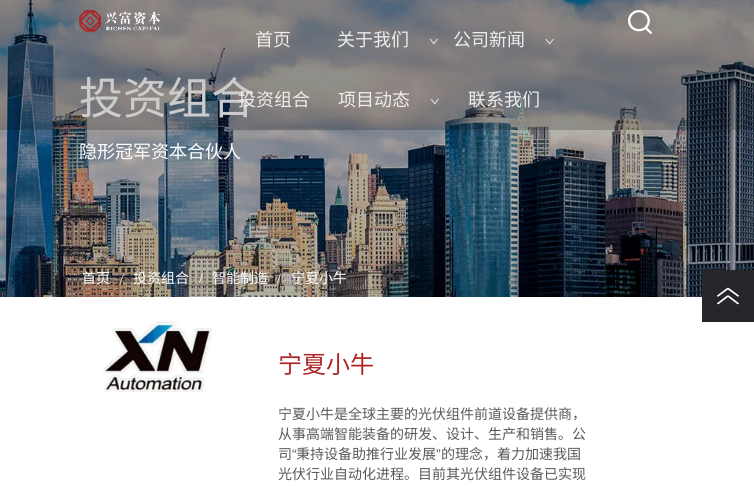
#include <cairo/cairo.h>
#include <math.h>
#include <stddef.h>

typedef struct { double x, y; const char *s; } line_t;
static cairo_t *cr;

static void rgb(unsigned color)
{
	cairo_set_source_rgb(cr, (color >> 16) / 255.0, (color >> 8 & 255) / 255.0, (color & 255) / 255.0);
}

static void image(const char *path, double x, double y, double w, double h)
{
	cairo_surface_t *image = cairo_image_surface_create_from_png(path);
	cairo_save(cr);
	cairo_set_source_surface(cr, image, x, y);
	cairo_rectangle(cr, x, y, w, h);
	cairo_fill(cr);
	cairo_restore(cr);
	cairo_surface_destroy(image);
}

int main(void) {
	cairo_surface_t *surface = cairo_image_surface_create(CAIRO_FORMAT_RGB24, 754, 486);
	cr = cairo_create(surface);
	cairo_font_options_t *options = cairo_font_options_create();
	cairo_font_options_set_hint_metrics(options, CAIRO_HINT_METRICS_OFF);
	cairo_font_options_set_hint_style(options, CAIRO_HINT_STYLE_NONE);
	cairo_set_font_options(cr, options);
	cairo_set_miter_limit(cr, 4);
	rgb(0xffffff);
	cairo_paint(cr);
	image("img/6.png", 0, 0, 754, 297);
	image("img/7.png", 103, 320, 109, 73);
	rgb(0x26272b);
	cairo_rectangle(cr, 702, 270, 52, 52);
	cairo_fill(cr);
	image("img/8.png", 717, 287, 22, 18);
	cairo_select_font_face(cr, "Noto Sans CJK SC", CAIRO_FONT_SLANT_NORMAL, CAIRO_FONT_WEIGHT_NORMAL);
	cairo_set_font_size(cr, 44);
	rgb(0xffffff);
	cairo_move_to(cr, 79, 114);
	cairo_show_text(cr, "投资组合");
	cairo_set_source_rgba(cr, 0, 0, 0, 0.2);
	cairo_rectangle(cr, 0, 0, 754, 130);
	cairo_fill(cr);
	cairo_set_font_size(cr, 18);
	rgb(0xeeeded);
	cairo_move_to(cr, 468, 106);
	cairo_show_text(cr, "联系我们");
	image("img/5.png", 430, 98, 9, 7);
	cairo_move_to(cr, 338, 106);
	cairo_show_text(cr, "项目动态");
	cairo_move_to(cr, 238, 106);
	cairo_show_text(cr, "投资组合");
	image("img/4.png", 545, 39, 9, 6);
	cairo_move_to(cr, 453, 46);
	cairo_show_text(cr, "公司新闻");
	image("img/3.png", 429, 38, 9, 7);
	cairo_move_to(cr, 337, 46);
	cairo_show_text(cr, "关于我们");
	cairo_move_to(cr, 255, 46);
	cairo_show_text(cr, "首页");
	image("img/1.png", 79, 10, 82, 22);
	image("img/2.png", 628, 10, 24, 24);
	rgb(0xffffff);
	cairo_move_to(cr, 79, 158);
	cairo_show_text(cr, "隐形冠军资本合伙人");
	cairo_set_font_size(cr, 14);
	cairo_move_to(cr, 82, 283);
	cairo_show_text(cr, "首页");
	cairo_select_font_face(cr, "Liberation Serif", CAIRO_FONT_SLANT_NORMAL, CAIRO_FONT_WEIGHT_NORMAL);
	cairo_move_to(cr, 120, 283);
	cairo_show_text(cr, "/");
	cairo_select_font_face(cr, "Noto Sans CJK SC", CAIRO_FONT_SLANT_NORMAL, CAIRO_FONT_WEIGHT_NORMAL);
	cairo_move_to(cr, 133, 283);
	cairo_show_text(cr, "投资组合");
	cairo_select_font_face(cr, "Liberation Serif", CAIRO_FONT_SLANT_NORMAL, CAIRO_FONT_WEIGHT_NORMAL);
	cairo_move_to(cr, 199, 283);
	cairo_show_text(cr, "/");
	cairo_select_font_face(cr, "Noto Sans CJK SC", CAIRO_FONT_SLANT_NORMAL, CAIRO_FONT_WEIGHT_NORMAL);
	cairo_move_to(cr, 212, 283);
	cairo_show_text(cr, "智能制造");
	cairo_select_font_face(cr, "Liberation Serif", CAIRO_FONT_SLANT_NORMAL, CAIRO_FONT_WEIGHT_NORMAL);
	cairo_move_to(cr, 277, 283);
	cairo_show_text(cr, "/");
	cairo_select_font_face(cr, "Noto Sans CJK SC", CAIRO_FONT_SLANT_NORMAL, CAIRO_FONT_WEIGHT_NORMAL);
	cairo_move_to(cr, 291, 283);
	cairo_show_text(cr, "宁夏小牛");
	cairo_set_font_size(cr, 24);
	rgb(0xae2727);
	cairo_move_to(cr, 278, 373);
	cairo_show_text(cr, "宁夏小牛");
	cairo_set_font_size(cr, 14);
	rgb(0x595959);
	{
		static const line_t items[] = {
			{278, 419, "宁夏小牛是全球主要的光伏组件前道设备提供商，"},
			{278, 439, "从事高端智能装备的研发、设计、生产和销售。公"},
			{278, 459, "司"},
		};
		for (size_t i = 0; i < sizeof items / sizeof *items; i++) {
			cairo_move_to(cr, items[i].x, items[i].y);
			cairo_show_text(cr, items[i].s);
		}
	}
	cairo_select_font_face(cr, "Liberation Sans", CAIRO_FONT_SLANT_NORMAL, CAIRO_FONT_WEIGHT_NORMAL);
	cairo_move_to(cr, 292, 459);
	cairo_show_text(cr, "“");
	cairo_select_font_face(cr, "Noto Sans CJK SC", CAIRO_FONT_SLANT_NORMAL, CAIRO_FONT_WEIGHT_NORMAL);
	cairo_move_to(cr, 296, 459);
	cairo_show_text(cr, "秉持设备助推行业发展");
	cairo_select_font_face(cr, "Liberation Sans", CAIRO_FONT_SLANT_NORMAL, CAIRO_FONT_WEIGHT_NORMAL);
	cairo_move_to(cr, 436, 459);
	cairo_show_text(cr, "”");
	cairo_select_font_face(cr, "Noto Sans CJK SC", CAIRO_FONT_SLANT_NORMAL, CAIRO_FONT_WEIGHT_NORMAL);
	cairo_move_to(cr, 441, 459);
	cairo_show_text(cr, "的理念，着力加速我国");
	cairo_move_to(cr, 278, 479);
	cairo_show_text(cr, "光伏行业自动化进程。目前其光伏组件设备已实现");
	cairo_surface_write_to_png(surface, "page.png");
	cairo_font_options_destroy(options);
	cairo_destroy(cr);
	cairo_surface_destroy(surface);
	return 0;
}
